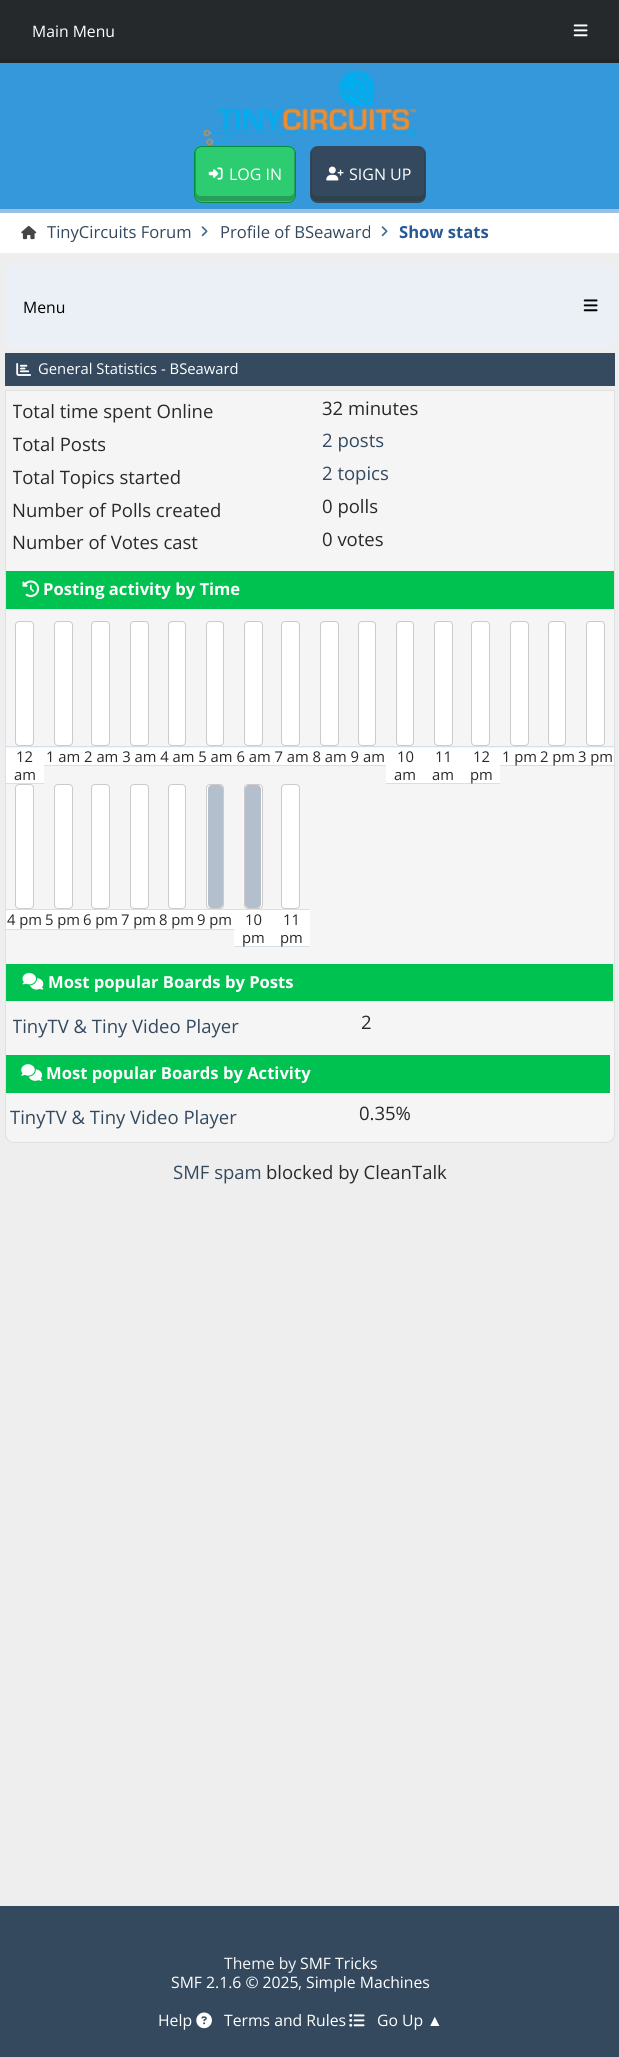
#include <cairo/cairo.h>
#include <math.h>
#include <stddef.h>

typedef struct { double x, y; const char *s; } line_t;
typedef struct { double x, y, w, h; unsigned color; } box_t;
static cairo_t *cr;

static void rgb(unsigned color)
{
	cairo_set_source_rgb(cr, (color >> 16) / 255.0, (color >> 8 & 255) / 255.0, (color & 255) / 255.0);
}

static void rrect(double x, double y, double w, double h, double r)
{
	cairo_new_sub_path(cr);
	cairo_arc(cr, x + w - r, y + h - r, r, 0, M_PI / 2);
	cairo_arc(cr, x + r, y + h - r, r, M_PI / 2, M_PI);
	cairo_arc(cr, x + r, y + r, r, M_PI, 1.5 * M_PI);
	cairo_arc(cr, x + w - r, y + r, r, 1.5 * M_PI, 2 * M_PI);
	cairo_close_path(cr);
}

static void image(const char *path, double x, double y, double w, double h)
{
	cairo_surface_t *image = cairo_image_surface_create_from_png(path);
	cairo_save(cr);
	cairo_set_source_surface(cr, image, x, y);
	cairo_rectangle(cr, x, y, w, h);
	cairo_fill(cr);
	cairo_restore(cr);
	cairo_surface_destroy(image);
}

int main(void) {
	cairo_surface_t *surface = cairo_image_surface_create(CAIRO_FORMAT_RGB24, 619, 2057);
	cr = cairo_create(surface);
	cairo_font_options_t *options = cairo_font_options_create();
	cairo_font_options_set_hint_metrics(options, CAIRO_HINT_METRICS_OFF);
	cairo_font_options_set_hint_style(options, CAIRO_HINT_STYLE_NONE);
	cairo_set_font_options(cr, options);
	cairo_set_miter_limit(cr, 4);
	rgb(0xeeeeee);
	cairo_paint(cr);
	rgb(0x26292b);
	cairo_rectangle(cr, 0, 0, 619, 59);
	cairo_fill(cr);
	rgb(0x222427);
	cairo_rectangle(cr, 0, 59, 619, 4);
	cairo_fill(cr);
	image("img/1.png", 573, 24, 15, 13);
	rgb(0x3498db);
	cairo_rectangle(cr, 0, 63, 619, 146);
	cairo_fill(cr);
	rgb(0x9fbfe0);
	cairo_rectangle(cr, 0, 209, 619, 4);
	cairo_fill(cr);
	image("img/2.png", 203, 71, 214, 74);
	rgb(0x2ecc70);
	rrect(194, 146, 102, 57, 8);
	cairo_fill(cr);
	rgb(0x289e59);
	cairo_new_path(cr);
	cairo_move_to(cr, 196, 151);
	cairo_curve_to(cr, 195, 152, 195, 153, 195, 154);
	cairo_line_to(cr, 195, 195);
	cairo_curve_to(cr, 195, 198, 198, 201, 201, 201);
	cairo_line_to(cr, 289, 201);
	cairo_curve_to(cr, 292, 201, 295, 198, 295, 195);
	cairo_line_to(cr, 295, 154);
	cairo_curve_to(cr, 295, 153, 295, 152, 294, 151);
	cairo_line_to(cr, 294, 192);
	cairo_curve_to(cr, 294, 194, 292, 196, 289, 196);
	cairo_line_to(cr, 201, 196);
	cairo_curve_to(cr, 198, 196, 196, 194, 196, 192);
	cairo_close_path(cr);
	cairo_fill(cr);
	rrect(194.5, 146.5, 101, 56, 7.5);
	rgb(0x008f3c);
	cairo_set_line_width(cr, 1);
	cairo_stroke(cr);
	image("img/3.png", 208, 167, 15, 13);
	rgb(0x34495e);
	rrect(310, 146, 116, 57, 8);
	cairo_fill(cr);
	rgb(0x2c434d);
	cairo_new_path(cr);
	cairo_move_to(cr, 312, 151);
	cairo_curve_to(cr, 311, 152, 311, 153, 311, 154);
	cairo_line_to(cr, 311, 195);
	cairo_curve_to(cr, 311, 198, 314, 201, 317, 201);
	cairo_line_to(cr, 419, 201);
	cairo_curve_to(cr, 422, 201, 425, 198, 425, 195);
	cairo_line_to(cr, 425, 154);
	cairo_curve_to(cr, 425, 153, 425, 152, 424, 151);
	cairo_line_to(cr, 424, 192);
	cairo_curve_to(cr, 424, 194, 422, 196, 419, 196);
	cairo_line_to(cr, 317, 196);
	cairo_curve_to(cr, 314, 196, 312, 194, 312, 192);
	cairo_close_path(cr);
	cairo_fill(cr);
	image("img/4.png", 326, 166, 18, 15);
	rgb(0xffffff);
	cairo_rectangle(cr, 0, 213, 619, 40);
	cairo_fill(cr);
	image("img/5.png", 21, 225, 16, 15);
	image("img/6.png", 201, 226, 7, 11);
	image("img/6.png", 381, 226, 7, 11);
	rgb(0xeaf0f5);
	rrect(5, 266, 610, 82, 5);
	cairo_fill(cr);
	image("img/7.png", 583, 299, 15, 13);
	rgb(0x354a5f);
	cairo_rectangle(cr, 5, 353, 610, 33);
	cairo_fill(cr);
	image("img/8.png", 16, 363, 15, 13);
	rgb(0xf5f5f5);
	cairo_new_path(cr);
	cairo_move_to(cr, 5.5, 390.5);
	cairo_line_to(cr, 614.5, 390.5);
	cairo_line_to(cr, 614.5, 1134);
	cairo_curve_to(cr, 614.5, 1138.5, 610.5, 1142.5, 606, 1142.5);
	cairo_line_to(cr, 14, 1142.5);
	cairo_curve_to(cr, 9.5, 1142.5, 5.5, 1138.5, 5.5, 1134);
	cairo_close_path(cr);
	cairo_fill_preserve(cr);
	rgb(0xe0e0e0);
	cairo_stroke(cr);
	rgb(0x00c251);
	cairo_rectangle(cr, 6, 571, 608, 38);
	cairo_fill(cr);
	image("img/9.png", 22, 580, 18, 18);
	rgb(0xffffff);
	rrect(91.5, 621.5, 18, 124, 3.5);
	cairo_fill_preserve(cr);
	rgb(0xcecaca);
	cairo_stroke(cr);
	rgb(0xffffff);
	rrect(130.5, 621.5, 18, 124, 3.5);
	cairo_fill_preserve(cr);
	rgb(0xcecaca);
	cairo_stroke(cr);
	rgb(0xffffff);
	rrect(168.5, 621.5, 17, 124, 3.5);
	cairo_fill_preserve(cr);
	rgb(0xcecaca);
	cairo_stroke(cr);
	rgb(0xffffff);
	rrect(206.5, 621.5, 17, 124, 3.5);
	cairo_fill_preserve(cr);
	rgb(0xcecaca);
	cairo_stroke(cr);
	rgb(0xffffff);
	rrect(244.5, 621.5, 18, 124, 3.5);
	cairo_fill_preserve(cr);
	rgb(0xcecaca);
	cairo_stroke(cr);
	rgb(0xffffff);
	rrect(281.5, 621.5, 18, 124, 3.5);
	cairo_fill_preserve(cr);
	rgb(0xcecaca);
	cairo_stroke(cr);
	rgb(0xffffff);
	rrect(320.5, 621.5, 18, 124, 3.5);
	cairo_fill_preserve(cr);
	rgb(0xcecaca);
	cairo_stroke(cr);
	rgb(0xffffff);
	rrect(358.5, 621.5, 17, 124, 3.5);
	cairo_fill_preserve(cr);
	rgb(0xcecaca);
	cairo_stroke(cr);
	rgb(0xffffff);
	rrect(15.5, 621.5, 18, 124, 3.5);
	cairo_fill_preserve(cr);
	rgb(0xcecaca);
	cairo_stroke(cr);
	{
		static const box_t items[] = {
			{6, 748, 38, 35, 0xffffff},
			{6, 746, 608, 1, 0xd6e0eb},
			{6, 783, 38, 1, 0xd6e0eb},
		};
		for (size_t i = 0; i < sizeof items / sizeof *items; i++) {
			rgb(items[i].color);
			cairo_rectangle(cr, items[i].x, items[i].y, items[i].w, items[i].h);
			cairo_fill(cr);
		}
	}
	rgb(0xffffff);
	rrect(54.5, 621.5, 18, 124, 3.5);
	cairo_fill_preserve(cr);
	rgb(0xcecaca);
	cairo_stroke(cr);
	rgb(0xffffff);
	cairo_rectangle(cr, 44, 748, 342, 17);
	cairo_fill(cr);
	rgb(0xd6e0eb);
	cairo_rectangle(cr, 44, 765, 342, 1);
	cairo_fill(cr);
	rgb(0xffffff);
	rrect(396.5, 621.5, 17, 124, 3.5);
	cairo_fill_preserve(cr);
	rgb(0xcecaca);
	cairo_stroke(cr);
	rgb(0xffffff);
	cairo_rectangle(cr, 386, 748, 114, 35);
	cairo_fill(cr);
	rgb(0xd6e0eb);
	cairo_rectangle(cr, 386, 783, 114, 1);
	cairo_fill(cr);
	rgb(0xffffff);
	rrect(434.5, 621.5, 18, 124, 3.5);
	cairo_fill_preserve(cr);
	rgb(0xcecaca);
	cairo_stroke(cr);
	rgb(0xffffff);
	rrect(471.5, 621.5, 18, 124, 3.5);
	cairo_fill_preserve(cr);
	rgb(0xcecaca);
	cairo_stroke(cr);
	rgb(0xffffff);
	rrect(510.5, 621.5, 18, 124, 3.5);
	cairo_fill_preserve(cr);
	rgb(0xcecaca);
	cairo_stroke(cr);
	rgb(0xffffff);
	cairo_rectangle(cr, 500, 748, 114, 17);
	cairo_fill(cr);
	rgb(0xd6e0eb);
	cairo_rectangle(cr, 500, 765, 114, 1);
	cairo_fill(cr);
	rgb(0xffffff);
	rrect(548.5, 621.5, 17, 124, 3.5);
	cairo_fill_preserve(cr);
	rgb(0xcecaca);
	cairo_stroke(cr);
	rgb(0xffffff);
	rrect(586.5, 621.5, 18, 124, 3.5);
	cairo_fill_preserve(cr);
	rgb(0xcecaca);
	cairo_stroke(cr);
	rgb(0xffffff);
	rrect(15.5, 784.5, 18, 124, 3.5);
	cairo_fill_preserve(cr);
	rgb(0xcecaca);
	cairo_stroke(cr);
	{
		static const box_t items[] = {
			{6, 910, 228, 19, 0xffffff},
			{6, 909, 304, 1, 0xd6e0eb},
			{6, 929, 228, 1, 0xd6e0eb},
		};
		for (size_t i = 0; i < sizeof items / sizeof *items; i++) {
			rgb(items[i].color);
			cairo_rectangle(cr, items[i].x, items[i].y, items[i].w, items[i].h);
			cairo_fill(cr);
		}
	}
	rgb(0xffffff);
	rrect(54.5, 784.5, 18, 124, 3.5);
	cairo_fill_preserve(cr);
	rgb(0xcecaca);
	cairo_stroke(cr);
	rgb(0xffffff);
	rrect(91.5, 784.5, 18, 124, 3.5);
	cairo_fill_preserve(cr);
	rgb(0xcecaca);
	cairo_stroke(cr);
	rgb(0xffffff);
	rrect(130.5, 784.5, 18, 124, 3.5);
	cairo_fill_preserve(cr);
	rgb(0xcecaca);
	cairo_stroke(cr);
	rgb(0xffffff);
	rrect(168.5, 784.5, 17, 124, 3.5);
	cairo_fill_preserve(cr);
	rgb(0xcecaca);
	cairo_stroke(cr);
	rgb(0xffffff);
	rrect(206.5, 784.5, 17, 124, 3.5);
	cairo_fill_preserve(cr);
	rgb(0xcecaca);
	cairo_stroke(cr);
	rgb(0xb3bfcc);
	rrect(208, 785, 15, 123, 4);
	cairo_fill(cr);
	rgb(0xffffff);
	rrect(244.5, 784.5, 18, 124, 3.5);
	cairo_fill_preserve(cr);
	rgb(0xcecaca);
	cairo_stroke(cr);
	rgb(0xb3bfcc);
	rrect(245, 785, 16, 123, 4);
	cairo_fill(cr);
	rgb(0xffffff);
	cairo_rectangle(cr, 234, 910, 76, 36);
	cairo_fill(cr);
	rgb(0xd6e0eb);
	cairo_rectangle(cr, 234, 946, 76, 1);
	cairo_fill(cr);
	rgb(0xffffff);
	rrect(281.5, 784.5, 18, 124, 3.5);
	cairo_fill_preserve(cr);
	rgb(0xcecaca);
	cairo_stroke(cr);
	rgb(0x00c251);
	cairo_rectangle(cr, 6, 964, 607, 37);
	cairo_fill(cr);
	image("img/10.png", 22, 972, 22, 18);
	cairo_rectangle(cr, 6, 1055, 604, 38);
	cairo_fill(cr);
	image("img/11.png", 21, 1064, 22, 17);
	rgb(0x34495e);
	cairo_rectangle(cr, 0, 1906, 619, 151);
	cairo_fill(cr);
	image("img/12.png", 196, 2012, 16, 17);
	image("img/13.png", 349, 2014, 16, 13);
	cairo_select_font_face(cr, "Open Sans", CAIRO_FONT_SLANT_NORMAL, CAIRO_FONT_WEIGHT_NORMAL);
	cairo_set_font_size(cr, 15.75);
	rgb(0xffffff);
	cairo_move_to(cr, 32, 37);
	cairo_show_text(cr, "Main Menu");
	cairo_set_font_size(cr, 16);
	cairo_move_to(cr, 229, 180);
	cairo_show_text(cr, "LOG IN");
	cairo_move_to(cr, 349, 180);
	cairo_show_text(cr, "SIGN UP");
	cairo_set_font_size(cr, 16.6);
	rgb(0x34495e);
	cairo_move_to(cr, 47, 238);
	cairo_show_text(cr, "TinyCircuits Forum");
	cairo_move_to(cr, 220, 238);
	cairo_show_text(cr, "Profile of BSeaward");
	cairo_select_font_face(cr, "Open Sans", CAIRO_FONT_SLANT_NORMAL, CAIRO_FONT_WEIGHT_BOLD);
	rgb(0x285995);
	cairo_move_to(cr, 399, 238);
	cairo_show_text(cr, "Show stats");
	cairo_select_font_face(cr, "Open Sans", CAIRO_FONT_SLANT_NORMAL, CAIRO_FONT_WEIGHT_NORMAL);
	cairo_set_font_size(cr, 15.75);
	rgb(0x000000);
	cairo_move_to(cr, 23, 313);
	cairo_show_text(cr, "Menu");
	cairo_set_font_size(cr, 14.8);
	rgb(0xffffff);
	cairo_move_to(cr, 38, 374);
	cairo_show_text(cr, "General Statistics - BSeaward");
	cairo_save(cr);
	cairo_rectangle(cr, 13, 398, 297, 27);
	cairo_clip(cr);
	cairo_set_font_size(cr, 18.5);
	rgb(0x292929);
	cairo_move_to(cr, 12, 418);
	cairo_show_text(cr, "Total time spent Online");
	cairo_restore(cr);
	cairo_set_font_size(cr, 18.5);
	rgb(0x292929);
	cairo_move_to(cr, 322, 415);
	cairo_show_text(cr, "32 minutes");
	cairo_save(cr);
	cairo_rectangle(cr, 13, 430, 297, 28);
	cairo_clip(cr);
	cairo_move_to(cr, 12, 451);
	cairo_show_text(cr, "Total Posts");
	cairo_restore(cr);
	rgb(0x34495e);
	cairo_move_to(cr, 322, 447);
	cairo_show_text(cr, "2 posts");
	cairo_save(cr);
	cairo_rectangle(cr, 13, 463, 297, 27);
	cairo_clip(cr);
	rgb(0x292929);
	cairo_move_to(cr, 12, 484);
	cairo_show_text(cr, "Total Topics started");
	cairo_restore(cr);
	cairo_move_to(cr, 322, 480);
	cairo_show_text(cr, "2 topics");
	rgb(0x292929);
	{
		static const line_t items[] = {
			{12, 517, "Number of Polls created"},
			{322, 513, "0 polls"},
			{12, 549, "Number of Votes cast"},
			{322, 546, "0 votes"},
		};
		for (size_t i = 0; i < sizeof items / sizeof *items; i++) {
			cairo_move_to(cr, items[i].x, items[i].y);
			cairo_show_text(cr, items[i].s);
		}
	}
	cairo_select_font_face(cr, "Open Sans", CAIRO_FONT_SLANT_NORMAL, CAIRO_FONT_WEIGHT_BOLD);
	cairo_set_font_size(cr, 16.6);
	rgb(0xffffff);
	cairo_move_to(cr, 43, 595);
	cairo_show_text(cr, "Posting activity by Time");
	cairo_select_font_face(cr, "Open Sans", CAIRO_FONT_SLANT_NORMAL, CAIRO_FONT_WEIGHT_NORMAL);
	cairo_set_font_size(cr, 14.8);
	rgb(0x292929);
	{
		static const line_t items[] = {
			{16, 762, "12"},
			{14, 780, "am"},
			{46, 762, "1 am 2 am 3 am 4 am 5 am 6 am 7 am 8 am 9 am"},
			{397, 762, "10"},
			{394, 780, "am"},
			{435, 762, "11"},
			{432, 780, "am"},
			{473, 762, "12"},
			{470, 780, "pm"},
			{502, 762, "1 pm"},
			{540, 762, "2 pm"},
			{578, 762, "3 pm"},
			{7, 925, "4 pm"},
			{45, 925, "5 pm"},
			{83, 925, "6 pm"},
			{121, 925, "7 pm"},
			{159, 925, "8 pm"},
			{197, 925, "9 pm"},
			{245, 925, "10"},
			{242, 943, "pm"},
			{283, 925, "11"},
			{280, 943, "pm"},
		};
		for (size_t i = 0; i < sizeof items / sizeof *items; i++) {
			cairo_move_to(cr, items[i].x, items[i].y);
			cairo_show_text(cr, items[i].s);
		}
	}
	cairo_select_font_face(cr, "Open Sans", CAIRO_FONT_SLANT_NORMAL, CAIRO_FONT_WEIGHT_BOLD);
	cairo_set_font_size(cr, 16.6);
	rgb(0xffffff);
	cairo_move_to(cr, 48, 988);
	cairo_show_text(cr, "Most popular Boards by Posts");
	cairo_save(cr);
	cairo_rectangle(cr, 13, 1011, 296, 29);
	cairo_clip(cr);
	cairo_select_font_face(cr, "Open Sans", CAIRO_FONT_SLANT_NORMAL, CAIRO_FONT_WEIGHT_NORMAL);
	cairo_set_font_size(cr, 18.5);
	rgb(0x34495e);
	cairo_move_to(cr, 12, 1033);
	cairo_show_text(cr, "TinyTV & Tiny Video Player");
	cairo_restore(cr);
	cairo_select_font_face(cr, "Open Sans", CAIRO_FONT_SLANT_NORMAL, CAIRO_FONT_WEIGHT_NORMAL);
	cairo_set_font_size(cr, 18.5);
	rgb(0x292929);
	cairo_move_to(cr, 361, 1029);
	cairo_show_text(cr, "2");
	cairo_select_font_face(cr, "Open Sans", CAIRO_FONT_SLANT_NORMAL, CAIRO_FONT_WEIGHT_BOLD);
	cairo_set_font_size(cr, 16.6);
	rgb(0xffffff);
	cairo_move_to(cr, 46, 1079);
	cairo_show_text(cr, "Most popular Boards by Activity");
	cairo_select_font_face(cr, "Open Sans", CAIRO_FONT_SLANT_NORMAL, CAIRO_FONT_WEIGHT_NORMAL);
	cairo_set_font_size(cr, 18.5);
	rgb(0x34495e);
	cairo_move_to(cr, 10, 1124);
	cairo_show_text(cr, "TinyTV & Tiny Video Player");
	rgb(0x292929);
	cairo_move_to(cr, 359, 1120);
	cairo_show_text(cr, "0.35%");
	rgb(0x34495e);
	cairo_move_to(cr, 173, 1179);
	cairo_show_text(cr, "SMF spam");
	rgb(0x292929);
	cairo_move_to(cr, 266, 1179);
	cairo_show_text(cr, "blocked by CleanTalk");
	cairo_set_font_size(cr, 15.75);
	rgb(0xf5f5f5);
	cairo_move_to(cr, 224, 1969);
	cairo_show_text(cr, "Theme by");
	rgb(0xffffff);
	cairo_move_to(cr, 300, 1969);
	cairo_show_text(cr, "SMF Tricks");
	cairo_move_to(cr, 171, 1988);
	cairo_show_text(cr, "SMF 2.1.6 © 2025");
	rgb(0xf5f5f5);
	cairo_move_to(cr, 298, 1988);
	cairo_show_text(cr, ",");
	rgb(0xffffff);
	{
		static const line_t items[] = {
			{306, 1988, "Simple Machines"},
			{158, 2026, "Help"},
			{224, 2026, "Terms and Rules"},
			{377, 2026, "Go Up"},
		};
		for (size_t i = 0; i < sizeof items / sizeof *items; i++) {
			cairo_move_to(cr, items[i].x, items[i].y);
			cairo_show_text(cr, items[i].s);
		}
	}
	cairo_select_font_face(cr, "Liberation Sans", CAIRO_FONT_SLANT_NORMAL, CAIRO_FONT_WEIGHT_NORMAL);
	cairo_move_to(cr, 427, 2026);
	cairo_show_text(cr, "▲");
	cairo_surface_write_to_png(surface, "page.png");
	cairo_font_options_destroy(options);
	cairo_destroy(cr);
	cairo_surface_destroy(surface);
	return 0;
}
